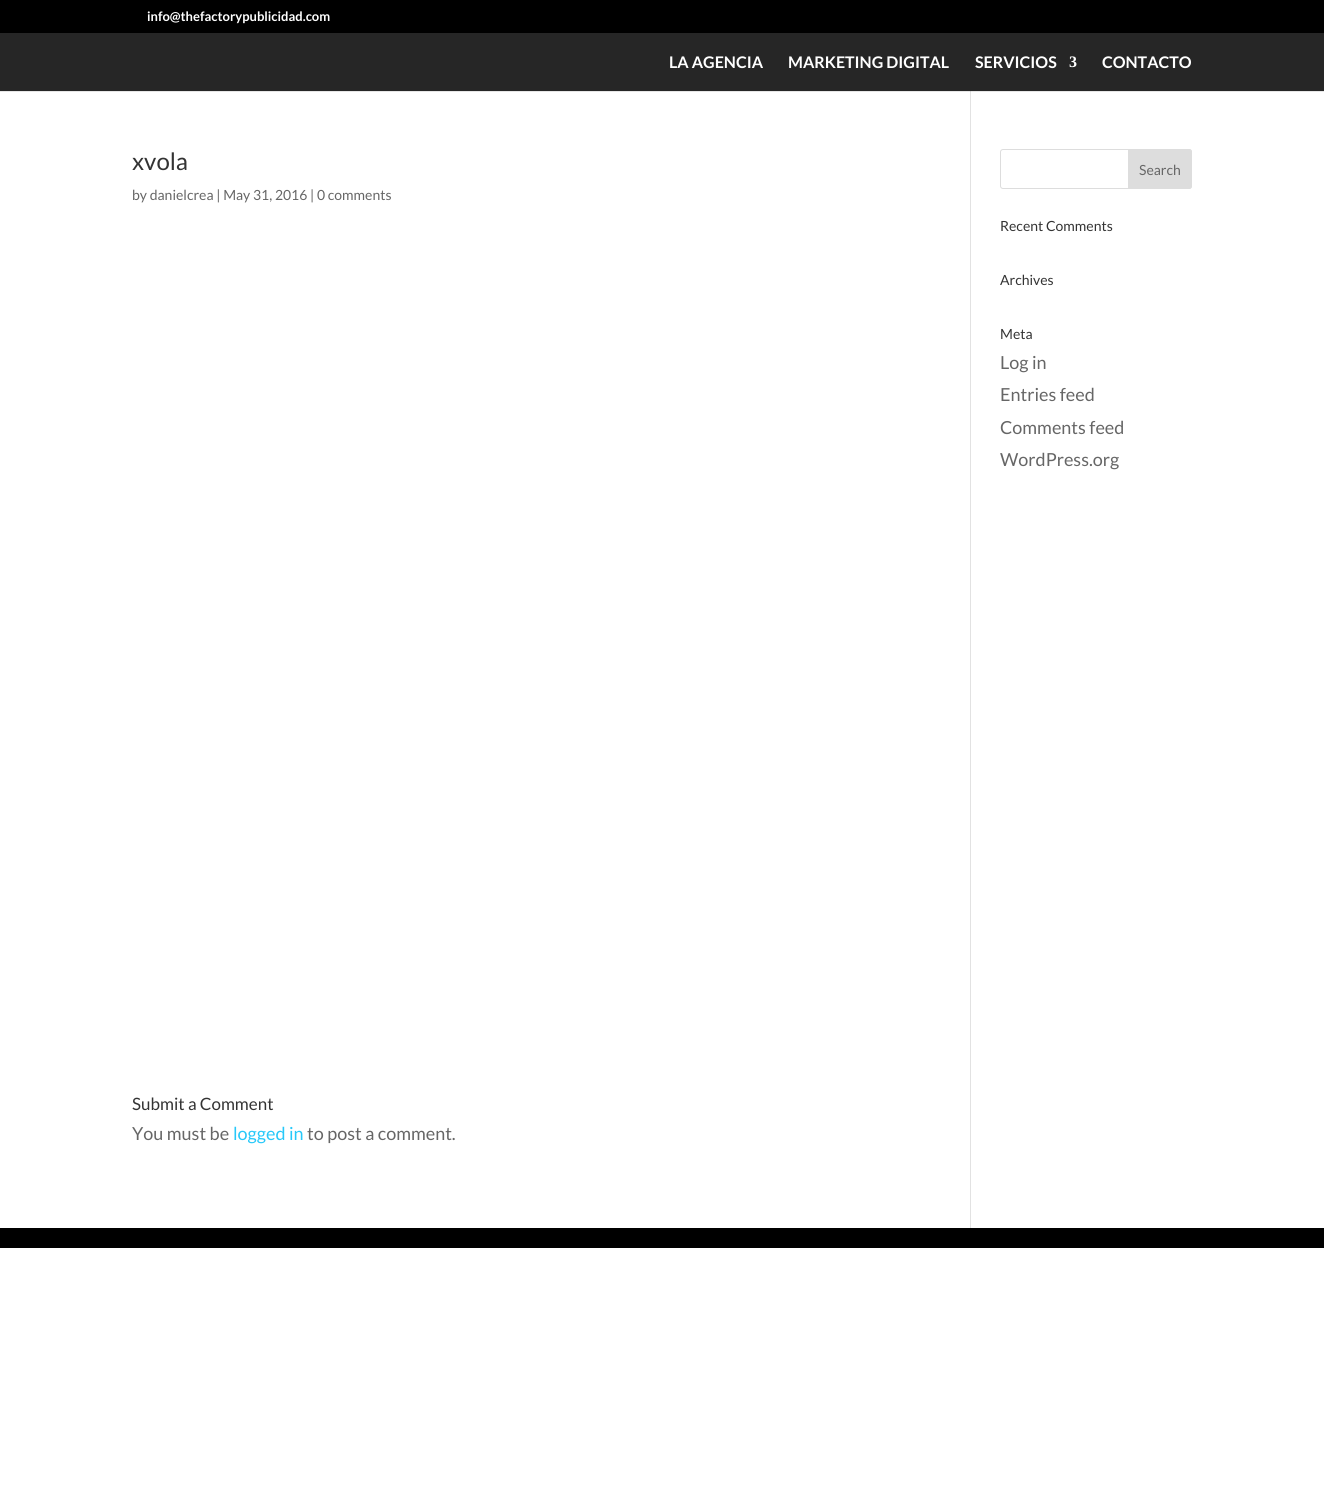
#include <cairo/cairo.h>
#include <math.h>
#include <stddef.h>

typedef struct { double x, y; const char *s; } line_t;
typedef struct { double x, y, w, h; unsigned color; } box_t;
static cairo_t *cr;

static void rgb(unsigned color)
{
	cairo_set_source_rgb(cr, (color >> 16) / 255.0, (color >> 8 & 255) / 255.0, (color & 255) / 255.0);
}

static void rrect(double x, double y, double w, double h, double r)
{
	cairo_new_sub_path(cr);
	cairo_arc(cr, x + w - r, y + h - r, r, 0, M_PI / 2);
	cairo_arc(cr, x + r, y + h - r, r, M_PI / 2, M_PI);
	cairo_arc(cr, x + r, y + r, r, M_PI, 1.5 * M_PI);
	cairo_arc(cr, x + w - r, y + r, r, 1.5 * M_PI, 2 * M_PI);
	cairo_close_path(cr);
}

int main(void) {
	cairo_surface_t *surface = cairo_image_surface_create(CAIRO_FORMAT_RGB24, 1324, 1510);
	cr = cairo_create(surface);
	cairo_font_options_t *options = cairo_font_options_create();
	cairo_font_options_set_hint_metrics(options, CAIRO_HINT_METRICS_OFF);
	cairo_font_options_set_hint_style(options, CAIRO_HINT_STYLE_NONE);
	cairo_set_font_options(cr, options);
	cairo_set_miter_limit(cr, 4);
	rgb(0xffffff);
	cairo_paint(cr);
	{
		static const box_t items[] = {
			{0, 91, 1324, 1, 0xe6e6e6},
			{0, 0, 1324, 33, 0x000000},
			{0, 33, 1324, 58, 0x262626},
			{970, 91, 1, 1137, 0xe2e2e2},
			{970, 91, 1, 1, 0xcbcbcb},
		};
		for (size_t i = 0; i < sizeof items / sizeof *items; i++) {
			rgb(items[i].color);
			cairo_rectangle(cr, items[i].x, items[i].y, items[i].w, items[i].h);
			cairo_fill(cr);
		}
	}
	rrect(1000.5, 149.5, 191, 39, 2.5);
	rgb(0xdddddd);
	cairo_set_line_width(cr, 1);
	cairo_stroke(cr);
	cairo_new_path(cr);
	cairo_move_to(cr, 1128.5, 149.5);
	cairo_line_to(cr, 1189, 149.5);
	cairo_curve_to(cr, 1190.5, 149.5, 1191.5, 150.5, 1191.5, 152);
	cairo_line_to(cr, 1191.5, 186);
	cairo_curve_to(cr, 1191.5, 187.5, 1190.5, 188.5, 1189, 188.5);
	cairo_line_to(cr, 1128.5, 188.5);
	cairo_close_path(cr);
	cairo_fill_preserve(cr);
	cairo_stroke(cr);
	rgb(0x000000);
	cairo_rectangle(cr, 0, 1228, 1324, 20);
	cairo_fill(cr);
	cairo_select_font_face(cr, "Lato", CAIRO_FONT_SLANT_NORMAL, CAIRO_FONT_WEIGHT_BOLD);
	cairo_set_font_size(cr, 13);
	rgb(0xffffff);
	cairo_move_to(cr, 147, 21);
	cairo_show_text(cr, "info@thefactorypublicidad.com");
	cairo_set_font_size(cr, 16);
	{
		static const line_t items[] = {
			{669, 68, "LA AGENCIA"},
			{788, 68, "MARKETING DIGITAL"},
			{975, 68, "SERVICIOS"},
		};
		for (size_t i = 0; i < sizeof items / sizeof *items; i++) {
			cairo_move_to(cr, items[i].x, items[i].y);
			cairo_show_text(cr, items[i].s);
		}
	}
	cairo_select_font_face(cr, "Liberation Serif", CAIRO_FONT_SLANT_NORMAL, CAIRO_FONT_WEIGHT_BOLD);
	cairo_move_to(cr, 1069, 67);
	cairo_show_text(cr, "3");
	cairo_select_font_face(cr, "Lato", CAIRO_FONT_SLANT_NORMAL, CAIRO_FONT_WEIGHT_BOLD);
	cairo_move_to(cr, 1102, 68);
	cairo_show_text(cr, "CONTACTO");
	cairo_select_font_face(cr, "Lato", CAIRO_FONT_SLANT_NORMAL, CAIRO_FONT_WEIGHT_NORMAL);
	cairo_set_font_size(cr, 24);
	rgb(0x333333);
	cairo_move_to(cr, 132, 170);
	cairo_show_text(cr, "xvola");
	cairo_set_font_size(cr, 14);
	rgb(0x666666);
	cairo_move_to(cr, 132, 200);
	cairo_show_text(cr, "by danielcrea | May 31, 2016 | 0 comments");
	cairo_set_font_size(cr, 17);
	rgb(0x333333);
	cairo_move_to(cr, 132, 1110);
	cairo_show_text(cr, "Submit a Comment");
	cairo_set_font_size(cr, 18);
	rgb(0x666666);
	cairo_move_to(cr, 132, 1140);
	cairo_show_text(cr, "You must be");
	rgb(0x27c8f9);
	cairo_move_to(cr, 233, 1140);
	cairo_show_text(cr, "logged in");
	rgb(0x666666);
	cairo_move_to(cr, 307, 1140);
	cairo_show_text(cr, "to post a comment.");
	cairo_set_font_size(cr, 14);
	cairo_move_to(cr, 1139, 175);
	cairo_show_text(cr, "Search");
	rgb(0x333333);
	{
		static const line_t items[] = {
			{1000, 231, "Recent Comments"},
			{1000, 285, "Archives"},
			{1000, 339, "Meta"},
		};
		for (size_t i = 0; i < sizeof items / sizeof *items; i++) {
			cairo_move_to(cr, items[i].x, items[i].y);
			cairo_show_text(cr, items[i].s);
		}
	}
	cairo_set_font_size(cr, 18);
	rgb(0x666666);
	{
		static const line_t items[] = {
			{1000, 369, "Log in"},
			{1000, 401, "Entries feed"},
			{1000, 434, "Comments feed"},
			{1000, 466, "WordPress.org"},
		};
		for (size_t i = 0; i < sizeof items / sizeof *items; i++) {
			cairo_move_to(cr, items[i].x, items[i].y);
			cairo_show_text(cr, items[i].s);
		}
	}
	cairo_surface_write_to_png(surface, "page.png");
	cairo_font_options_destroy(options);
	cairo_destroy(cr);
	cairo_surface_destroy(surface);
	return 0;
}
